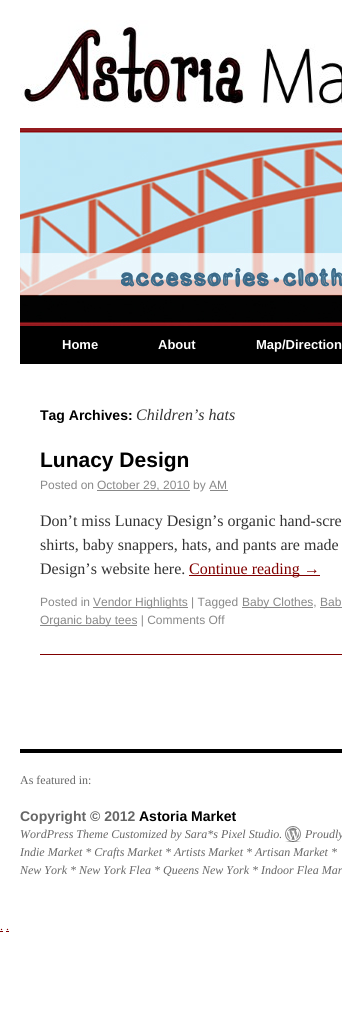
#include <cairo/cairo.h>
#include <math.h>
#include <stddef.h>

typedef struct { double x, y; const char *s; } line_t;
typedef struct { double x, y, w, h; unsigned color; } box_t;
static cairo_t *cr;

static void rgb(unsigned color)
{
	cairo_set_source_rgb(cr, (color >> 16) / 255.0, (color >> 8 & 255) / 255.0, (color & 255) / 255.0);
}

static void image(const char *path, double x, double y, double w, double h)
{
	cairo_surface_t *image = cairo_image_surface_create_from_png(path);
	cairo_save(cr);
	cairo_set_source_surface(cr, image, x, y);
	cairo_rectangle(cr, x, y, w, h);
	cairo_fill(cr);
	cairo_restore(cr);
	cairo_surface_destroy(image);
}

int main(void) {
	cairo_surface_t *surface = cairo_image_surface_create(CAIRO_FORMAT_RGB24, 342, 1023);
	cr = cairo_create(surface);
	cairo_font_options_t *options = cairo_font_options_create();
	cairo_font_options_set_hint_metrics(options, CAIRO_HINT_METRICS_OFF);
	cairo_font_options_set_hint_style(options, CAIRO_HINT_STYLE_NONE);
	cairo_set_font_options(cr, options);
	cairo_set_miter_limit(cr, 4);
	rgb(0xffffff);
	cairo_paint(cr);
	image("img/1.png", 20, 20, 322, 88);
	image("img/2.png", 20, 128, 322, 198);
	{
		static const box_t items[] = {
			{20, 326, 322, 38, 0x000000},
			{40, 654, 302, 1, 0x800000},
			{97, 490, 93, 1, 0x888888},
			{210, 490, 18, 1, 0x888888},
			{189, 575, 131, 1, 0x800000},
			{93, 607, 95, 1, 0x888888},
			{242, 607, 71, 1, 0x888888},
			{320, 607, 22, 1, 0x888888},
			{40, 625, 97, 1, 0x888888},
			{20, 749, 322, 4, 0x000000},
		};
		for (size_t i = 0; i < sizeof items / sizeof *items; i++) {
			rgb(items[i].color);
			cairo_rectangle(cr, items[i].x, items[i].y, items[i].w, items[i].h);
			cairo_fill(cr);
		}
	}
	image("img/3.png", 285, 826, 16, 16);
	rgb(0x800000);
	cairo_rectangle(cr, 0, 931, 3, 1);
	cairo_fill(cr);
	cairo_rectangle(cr, 6, 931, 3, 1);
	cairo_fill(cr);
	cairo_select_font_face(cr, "Liberation Sans", CAIRO_FONT_SLANT_NORMAL, CAIRO_FONT_WEIGHT_BOLD);
	cairo_set_font_size(cr, 13);
	rgb(0xffffff);
	{
		static const line_t items[] = {
			{62, 349, "Home"},
			{158, 349, "About"},
			{256, 349, "Map/Direction"},
		};
		for (size_t i = 0; i < sizeof items / sizeof *items; i++) {
			cairo_move_to(cr, items[i].x, items[i].y);
			cairo_show_text(cr, items[i].s);
		}
	}
	cairo_set_font_size(cr, 14);
	rgb(0x000000);
	cairo_move_to(cr, 40, 420);
	cairo_show_text(cr, "Tag Archives:");
	cairo_select_font_face(cr, "Liberation Serif", CAIRO_FONT_SLANT_ITALIC, CAIRO_FONT_WEIGHT_NORMAL);
	cairo_set_font_size(cr, 16);
	rgb(0x333333);
	cairo_move_to(cr, 136, 420);
	cairo_show_text(cr, "Children’s hats");
	cairo_select_font_face(cr, "Liberation Sans", CAIRO_FONT_SLANT_NORMAL, CAIRO_FONT_WEIGHT_BOLD);
	cairo_set_font_size(cr, 21);
	rgb(0x000000);
	cairo_move_to(cr, 40, 467);
	cairo_show_text(cr, "Lunacy Design");
	cairo_select_font_face(cr, "Liberation Sans", CAIRO_FONT_SLANT_NORMAL, CAIRO_FONT_WEIGHT_NORMAL);
	cairo_set_font_size(cr, 12);
	rgb(0x888888);
	cairo_move_to(cr, 40, 489);
	cairo_show_text(cr, "Posted on");
	cairo_move_to(cr, 97, 489);
	cairo_show_text(cr, "October 29, 2010 by AM");
	cairo_select_font_face(cr, "Liberation Serif", CAIRO_FONT_SLANT_NORMAL, CAIRO_FONT_WEIGHT_NORMAL);
	cairo_set_font_size(cr, 16);
	rgb(0x333333);
	{
		static const line_t items[] = {
			{40, 526, "Don’t miss Lunacy Design’s organic hand-scre"},
			{40, 550, "shirts, baby snappers, hats, and pants are made"},
			{40, 574, "Design’s website here."},
		};
		for (size_t i = 0; i < sizeof items / sizeof *items; i++) {
			cairo_move_to(cr, items[i].x, items[i].y);
			cairo_show_text(cr, items[i].s);
		}
	}
	rgb(0x800000);
	cairo_move_to(cr, 189, 574);
	cairo_show_text(cr, "Continue reading →");
	cairo_select_font_face(cr, "Liberation Sans", CAIRO_FONT_SLANT_NORMAL, CAIRO_FONT_WEIGHT_NORMAL);
	cairo_set_font_size(cr, 12);
	rgb(0x888888);
	{
		static const line_t items[] = {
			{40, 606, "Posted in"},
			{93, 606, "Vendor Highlights | Tagged"},
			{242, 606, "Baby Clothes, Bab"},
			{40, 624, "Organic baby tees | Comments Off"},
		};
		for (size_t i = 0; i < sizeof items / sizeof *items; i++) {
			cairo_move_to(cr, items[i].x, items[i].y);
			cairo_show_text(cr, items[i].s);
		}
	}
	cairo_select_font_face(cr, "Liberation Serif", CAIRO_FONT_SLANT_NORMAL, CAIRO_FONT_WEIGHT_NORMAL);
	rgb(0x666666);
	cairo_move_to(cr, 20, 784);
	cairo_show_text(cr, "As featured in:");
	cairo_select_font_face(cr, "Liberation Sans", CAIRO_FONT_SLANT_NORMAL, CAIRO_FONT_WEIGHT_BOLD);
	cairo_set_font_size(cr, 14);
	cairo_move_to(cr, 20, 821);
	cairo_show_text(cr, "Copyright © 2012");
	rgb(0x000000);
	cairo_move_to(cr, 139, 821);
	cairo_show_text(cr, "Astoria Market");
	cairo_select_font_face(cr, "Liberation Serif", CAIRO_FONT_SLANT_ITALIC, CAIRO_FONT_WEIGHT_NORMAL);
	cairo_set_font_size(cr, 12);
	rgb(0x666666);
	{
		static const line_t items[] = {
			{20, 838, "WordPress Theme Customized by Sara*s Pixel Studio."},
			{305, 838, "Proudly"},
			{20, 856, "Indie Market * Crafts Market * Artists Market * Artisan Market *"},
			{20, 874, "New York * New York Flea * Queens New York * Indoor Flea Mar"},
		};
		for (size_t i = 0; i < sizeof items / sizeof *items; i++) {
			cairo_move_to(cr, items[i].x, items[i].y);
			cairo_show_text(cr, items[i].s);
		}
	}
	cairo_select_font_face(cr, "Liberation Serif", CAIRO_FONT_SLANT_NORMAL, CAIRO_FONT_WEIGHT_NORMAL);
	rgb(0x800000);
	cairo_move_to(cr, 0, 930);
	cairo_show_text(cr, ". .");
	cairo_surface_write_to_png(surface, "page.png");
	cairo_font_options_destroy(options);
	cairo_destroy(cr);
	cairo_surface_destroy(surface);
	return 0;
}
